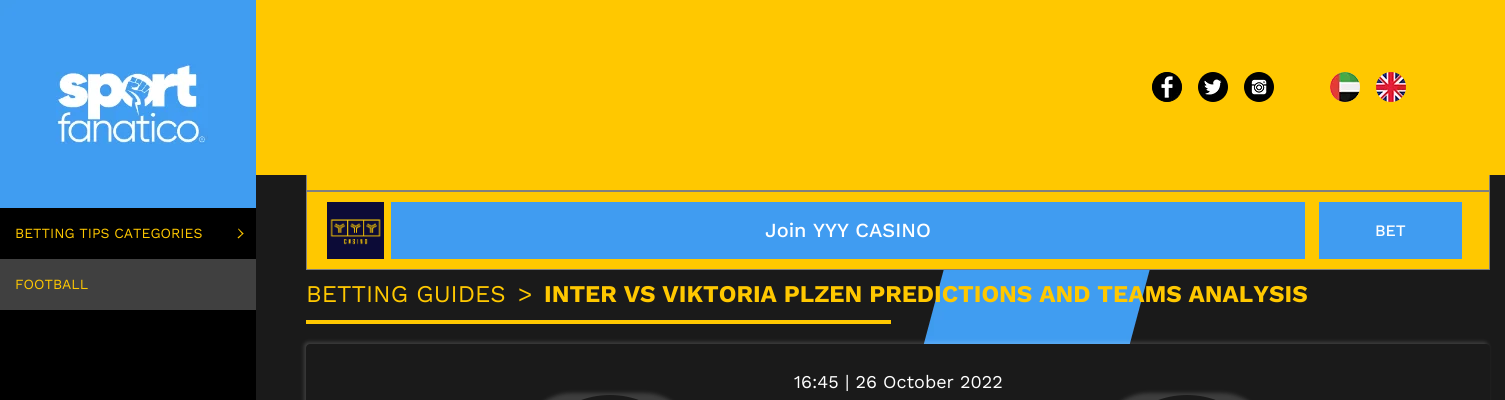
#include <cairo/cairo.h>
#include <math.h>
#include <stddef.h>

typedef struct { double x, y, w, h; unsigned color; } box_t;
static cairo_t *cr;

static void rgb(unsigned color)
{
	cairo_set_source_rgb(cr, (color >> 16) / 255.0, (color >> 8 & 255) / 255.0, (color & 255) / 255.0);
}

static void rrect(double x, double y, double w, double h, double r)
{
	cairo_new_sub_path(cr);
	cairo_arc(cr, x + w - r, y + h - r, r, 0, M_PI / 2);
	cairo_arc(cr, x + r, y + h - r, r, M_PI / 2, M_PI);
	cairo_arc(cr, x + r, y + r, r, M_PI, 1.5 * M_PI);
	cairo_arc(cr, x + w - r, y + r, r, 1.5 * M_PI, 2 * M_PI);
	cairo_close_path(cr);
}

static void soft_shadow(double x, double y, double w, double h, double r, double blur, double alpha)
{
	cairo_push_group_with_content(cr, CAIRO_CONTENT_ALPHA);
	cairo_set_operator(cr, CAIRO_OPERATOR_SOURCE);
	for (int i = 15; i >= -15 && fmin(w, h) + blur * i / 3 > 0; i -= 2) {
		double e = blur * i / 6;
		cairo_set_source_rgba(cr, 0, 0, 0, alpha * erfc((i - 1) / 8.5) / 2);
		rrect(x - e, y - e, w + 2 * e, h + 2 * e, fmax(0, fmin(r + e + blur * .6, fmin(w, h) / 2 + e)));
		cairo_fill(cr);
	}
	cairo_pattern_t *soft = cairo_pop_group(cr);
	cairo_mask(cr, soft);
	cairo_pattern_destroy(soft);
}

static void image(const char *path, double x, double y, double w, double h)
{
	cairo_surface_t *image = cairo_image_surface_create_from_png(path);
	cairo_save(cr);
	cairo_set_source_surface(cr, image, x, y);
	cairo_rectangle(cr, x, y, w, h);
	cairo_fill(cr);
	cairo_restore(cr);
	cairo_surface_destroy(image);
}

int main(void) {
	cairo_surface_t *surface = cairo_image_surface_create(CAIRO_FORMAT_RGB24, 1505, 400);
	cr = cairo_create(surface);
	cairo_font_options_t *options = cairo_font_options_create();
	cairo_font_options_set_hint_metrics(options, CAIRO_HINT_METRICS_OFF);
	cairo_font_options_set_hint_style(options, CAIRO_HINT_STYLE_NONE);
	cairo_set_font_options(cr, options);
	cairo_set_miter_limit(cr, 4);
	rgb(0x1a1a1a);
	cairo_paint(cr);
	rgb(0xffc800);
	cairo_rectangle(cr, 307, 175, 1182, 15);
	cairo_fill(cr);
	cairo_rectangle(cr, 306.5, 140.5, 1183, 50);
	rgb(0x808080);
	cairo_set_line_width(cr, 1);
	cairo_stroke(cr);
	rgb(0xffc800);
	cairo_rectangle(cr, 256, 0, 1249, 175);
	cairo_fill(cr);
	image("img/1.png", 0, 0, 256, 208);
	rgb(0x000000);
	cairo_arc(cr, 1167, 87, 15, 0, 2 * M_PI);
	cairo_fill(cr);
	image("img/2.png", 1152, 72, 30, 30);
	cairo_arc(cr, 1213, 87, 15, 0, 2 * M_PI);
	cairo_fill(cr);
	image("img/3.png", 1200, 79, 22, 17);
	cairo_arc(cr, 1259, 87, 15, 0, 2 * M_PI);
	cairo_fill(cr);
	image("img/4.png", 1249, 77, 19, 19);
	image("img/5.png", 1330, 72, 30, 30);
	image("img/6.png", 1376, 72, 30, 30);
	cairo_rectangle(cr, 0, 310, 256, 90);
	cairo_fill(cr);
	cairo_rectangle(cr, 0, 208, 256, 51);
	cairo_fill(cr);
	rgb(0xffc800);
	cairo_new_path(cr);
	cairo_move_to(cr, 243.5, 233.5);
	cairo_line_to(cr, 238.5, 238.5);
	cairo_line_to(cr, 237.5, 237.5);
	cairo_line_to(cr, 243, 233);
	cairo_close_path(cr);
	cairo_fill(cr);
	cairo_new_path(cr);
	cairo_move_to(cr, 243.5, 233.5);
	cairo_line_to(cr, 242.5, 234.5);
	cairo_line_to(cr, 238, 229);
	cairo_line_to(cr, 238.5, 228.5);
	cairo_close_path(cr);
	cairo_fill(cr);
	rgb(0x404040);
	cairo_rectangle(cr, 0, 259, 256, 51);
	cairo_fill(cr);
	image("img/7.png", 923, 270, 227, 74);
	rgb(0xffc800);
	cairo_rectangle(cr, 306.5, 191.5, 1183, 78);
	cairo_fill_preserve(cr);
	rgb(0x808080);
	cairo_stroke(cr);
	image("img/8.png", 327, 202, 57, 57);
	{
		static const box_t items[] = {
			{391, 202, 914, 57, 0x409cf1},
			{1319, 202, 143, 57, 0x409cf1},
			{306, 320, 585, 4, 0xffc800},
		};
		for (size_t i = 0; i < sizeof items / sizeof *items; i++) {
			rgb(items[i].color);
			cairo_rectangle(cr, items[i].x, items[i].y, items[i].w, items[i].h);
			cairo_fill(cr);
		}
	}
	rgb(0xffffff);
	soft_shadow(304, 342, 1184, 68, 4, 2, 0.16);
	rgb(0x1a1a1a);
	rrect(306, 344, 1184, 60, 4);
	cairo_fill(cr);
	rgb(0xffffff);
	soft_shadow(523, 393, 170, 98, 85, 2, 0.16);
	rgb(0x1a1a1a);
	rrect(525, 395, 170, 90, 85);
	cairo_fill(cr);
	rgb(0xffffff);
	soft_shadow(1100, 393, 170, 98, 85, 2, 0.16);
	rgb(0x1a1a1a);
	rrect(1102, 395, 170, 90, 85);
	cairo_fill(cr);
	cairo_select_font_face(cr, "Work Sans", CAIRO_FONT_SLANT_NORMAL, CAIRO_FONT_WEIGHT_NORMAL);
	cairo_set_font_size(cr, 14);
	rgb(0xffc800);
	cairo_move_to(cr, 15, 238);
	cairo_show_text(cr, "BETTING TIPS CATEGORIES");
	cairo_move_to(cr, 15, 289);
	cairo_show_text(cr, "FOOTBALL");
	cairo_select_font_face(cr, "Work Sans Medium", CAIRO_FONT_SLANT_NORMAL, CAIRO_FONT_WEIGHT_NORMAL);
	cairo_set_font_size(cr, 20);
	rgb(0xffffff);
	cairo_move_to(cr, 765, 237);
	cairo_show_text(cr, "Join YYY CASINO");
	cairo_set_font_size(cr, 16);
	cairo_move_to(cr, 1375, 236);
	cairo_show_text(cr, "BET");
	cairo_select_font_face(cr, "Work Sans", CAIRO_FONT_SLANT_NORMAL, CAIRO_FONT_WEIGHT_NORMAL);
	cairo_set_font_size(cr, 24);
	rgb(0xffc800);
	cairo_move_to(cr, 306, 302);
	cairo_show_text(cr, "BETTING GUIDES");
	cairo_move_to(cr, 518, 302);
	cairo_show_text(cr, ">");
	cairo_select_font_face(cr, "Work Sans", CAIRO_FONT_SLANT_NORMAL, CAIRO_FONT_WEIGHT_BOLD);
	cairo_move_to(cr, 544, 302);
	cairo_show_text(cr, "INTER VS VIKTORIA PLZEN PREDICTIONS AND TEAMS ANALYSIS");
	cairo_select_font_face(cr, "Work Sans", CAIRO_FONT_SLANT_NORMAL, CAIRO_FONT_WEIGHT_NORMAL);
	cairo_set_font_size(cr, 18);
	rgb(0xffffff);
	cairo_move_to(cr, 794, 388);
	cairo_show_text(cr, "16:45 | 26 October 2022");
	cairo_surface_write_to_png(surface, "page.png");
	cairo_font_options_destroy(options);
	cairo_destroy(cr);
	cairo_surface_destroy(surface);
	return 0;
}
